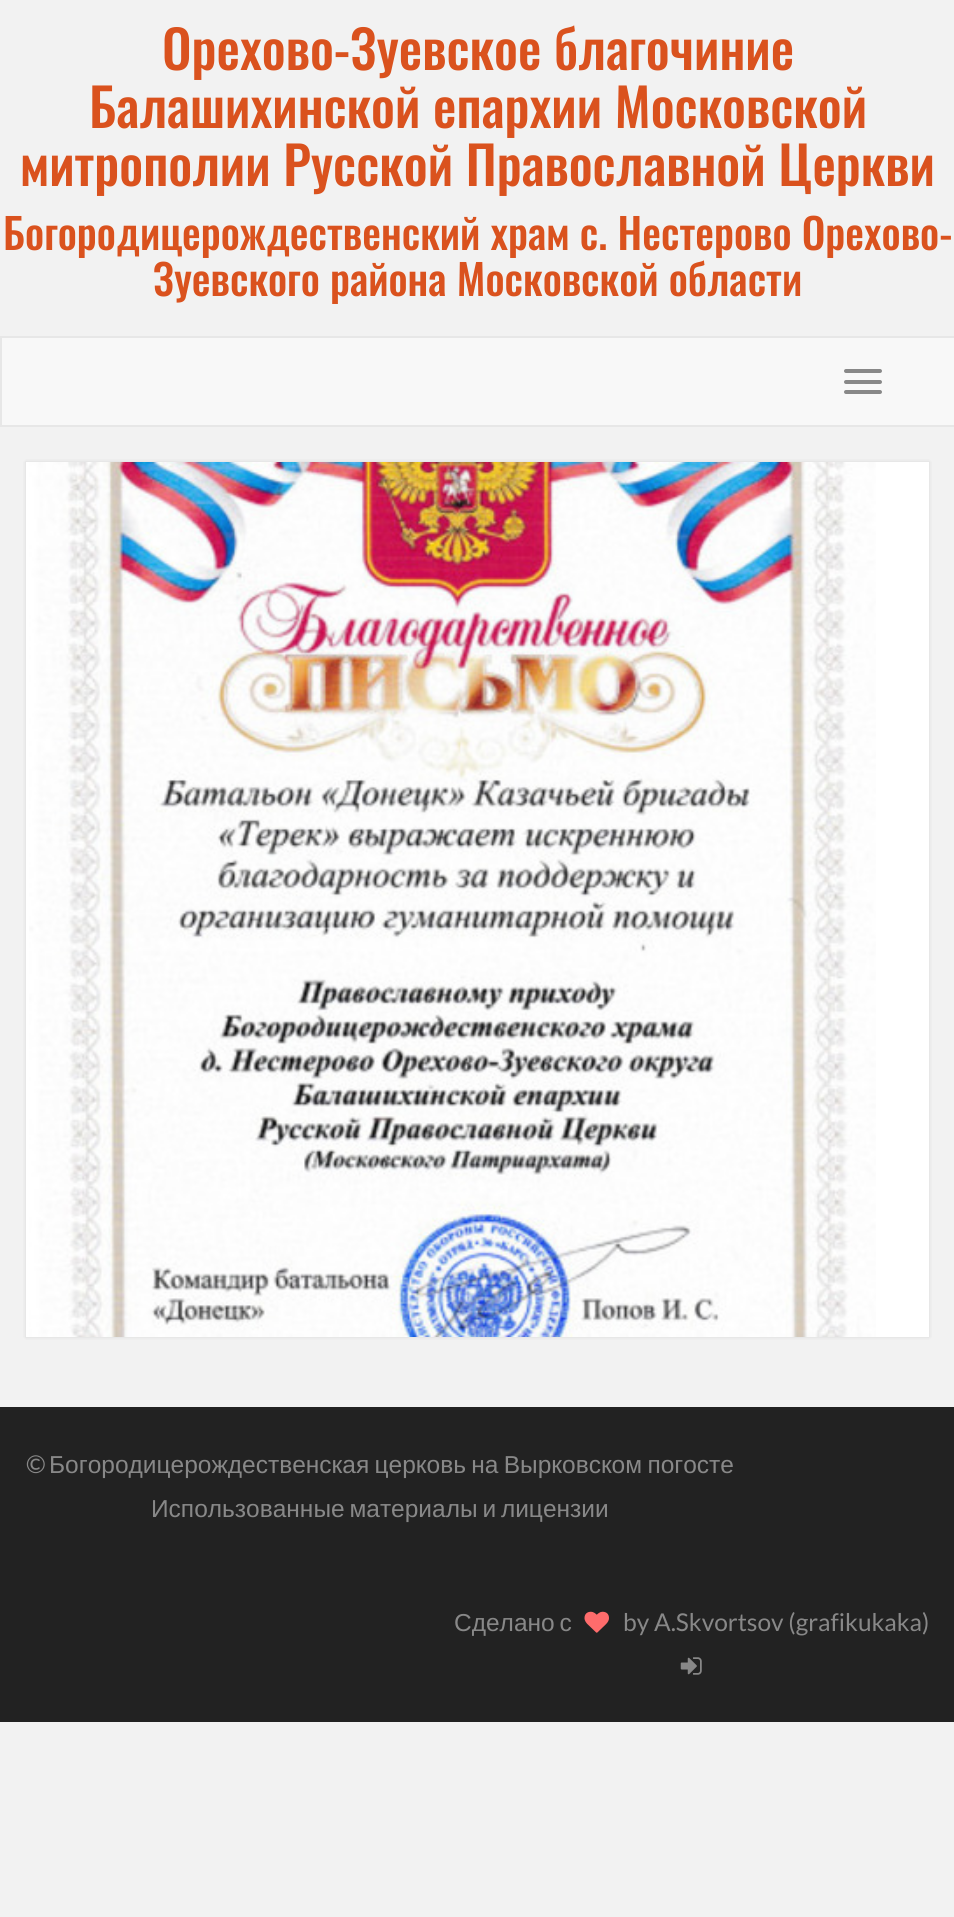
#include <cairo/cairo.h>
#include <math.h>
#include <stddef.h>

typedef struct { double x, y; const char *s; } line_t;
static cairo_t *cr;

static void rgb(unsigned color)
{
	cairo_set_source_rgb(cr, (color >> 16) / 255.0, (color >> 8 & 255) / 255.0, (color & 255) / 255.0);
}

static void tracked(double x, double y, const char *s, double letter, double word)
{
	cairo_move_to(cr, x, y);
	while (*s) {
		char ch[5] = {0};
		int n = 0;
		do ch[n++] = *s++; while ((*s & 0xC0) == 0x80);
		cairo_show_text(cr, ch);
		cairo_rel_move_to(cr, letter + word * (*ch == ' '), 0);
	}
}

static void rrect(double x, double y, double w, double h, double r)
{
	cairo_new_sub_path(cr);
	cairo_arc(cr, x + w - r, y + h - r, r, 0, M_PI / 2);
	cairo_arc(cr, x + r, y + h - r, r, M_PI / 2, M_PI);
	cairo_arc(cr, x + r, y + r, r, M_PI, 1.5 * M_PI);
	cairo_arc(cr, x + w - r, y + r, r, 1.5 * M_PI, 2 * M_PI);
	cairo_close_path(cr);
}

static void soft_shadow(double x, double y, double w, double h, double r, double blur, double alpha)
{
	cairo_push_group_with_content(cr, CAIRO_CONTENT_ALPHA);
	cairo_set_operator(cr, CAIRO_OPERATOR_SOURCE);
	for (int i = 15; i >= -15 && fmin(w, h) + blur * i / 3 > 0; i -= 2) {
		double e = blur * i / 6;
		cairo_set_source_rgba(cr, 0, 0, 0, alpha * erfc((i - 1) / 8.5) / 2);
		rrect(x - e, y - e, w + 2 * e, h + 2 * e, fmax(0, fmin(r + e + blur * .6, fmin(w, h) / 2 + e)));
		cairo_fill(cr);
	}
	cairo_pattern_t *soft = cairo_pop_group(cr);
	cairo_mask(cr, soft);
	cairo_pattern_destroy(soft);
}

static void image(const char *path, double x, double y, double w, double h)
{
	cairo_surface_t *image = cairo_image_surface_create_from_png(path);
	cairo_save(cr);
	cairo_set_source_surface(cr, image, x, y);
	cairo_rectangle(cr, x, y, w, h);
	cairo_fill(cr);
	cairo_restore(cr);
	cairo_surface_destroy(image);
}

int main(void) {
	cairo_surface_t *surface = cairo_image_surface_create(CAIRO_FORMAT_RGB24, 954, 1917);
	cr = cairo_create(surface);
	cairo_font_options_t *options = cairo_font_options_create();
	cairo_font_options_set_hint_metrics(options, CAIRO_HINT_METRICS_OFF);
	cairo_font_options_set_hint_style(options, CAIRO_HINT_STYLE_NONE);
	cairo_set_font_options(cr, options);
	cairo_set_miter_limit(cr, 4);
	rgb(0xf2f2f2);
	cairo_paint(cr);
	rgb(0xf8f8f8);
	cairo_rectangle(cr, 1, 337, 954, 89);
	cairo_fill_preserve(cr);
	rgb(0xe7e7e7);
	cairo_stroke(cr);
	rgb(0x888888);
	rrect(844, 369, 38, 4, 2);
	cairo_fill(cr);
	rrect(844, 380, 38, 4, 2);
	cairo_fill(cr);
	rrect(844, 390, 38, 4, 2);
	cairo_fill(cr);
	rgb(0x333333);
	soft_shadow(26, 462, 903, 875, 0, 2, 0.08);
	soft_shadow(26, 462, 903, 875, 0, 2, 0.08);
	rgb(0xffffff);
	cairo_rectangle(cr, 26, 462, 903, 875);
	cairo_fill(cr);
	image("img/1.png", 29, 462, 847, 875);
	rgb(0x222222);
	cairo_rectangle(cr, 0, 1407, 954, 315);
	cairo_fill(cr);
	image("img/2.png", 584, 1611, 25, 22);
	image("img/3.png", 680, 1657, 22, 18);
	cairo_select_font_face(cr, "Oswald Medium", CAIRO_FONT_SLANT_NORMAL, CAIRO_FONT_WEIGHT_NORMAL);
	cairo_set_font_size(cr, 52.5);
	rgb(0xda521e);
	{
		static const line_t items[] = {
			{162, 70, "Орехово-Зуевское благочиние"},
			{89, 128, "Балашихинской епархии Московской"},
			{20, 186, "митрополии Русской Православной Церкви"},
		};
		for (size_t i = 0; i < sizeof items / sizeof *items; i++) {
			cairo_move_to(cr, items[i].x, items[i].y);
			cairo_show_text(cr, items[i].s);
		}
	}
	cairo_set_font_size(cr, 42);
	cairo_move_to(cr, 3, 250);
	cairo_show_text(cr, "Богородицерождественский храм с. Нестерово Орехово-");
	cairo_move_to(cr, 153, 296);
	cairo_show_text(cr, "Зуевского района Московской области");
	cairo_select_font_face(cr, "Lato", CAIRO_FONT_SLANT_NORMAL, CAIRO_FONT_WEIGHT_NORMAL);
	cairo_set_font_size(cr, 24.5);
	rgb(0x888888);
	cairo_move_to(cr, 26, 1473);
	cairo_show_text(cr, "©");
	cairo_select_font_face(cr, "Liberation Sans", CAIRO_FONT_SLANT_NORMAL, CAIRO_FONT_WEIGHT_NORMAL);
	tracked(49, 1473, "Богородицерождественская церковь на Вырковском погосте", 0, -1.5);
	tracked(151, 1517, "Использованные материалы и лицензии", 0, -2);
	tracked(454, 1631, "Сделано с", 0, -2);
	cairo_select_font_face(cr, "Lato", CAIRO_FONT_SLANT_NORMAL, CAIRO_FONT_WEIGHT_NORMAL);
	cairo_move_to(cr, 623, 1631);
	cairo_show_text(cr, "by A.Skvortsov (grafikukaka)");
	cairo_surface_write_to_png(surface, "page.png");
	cairo_font_options_destroy(options);
	cairo_destroy(cr);
	cairo_surface_destroy(surface);
	return 0;
}
